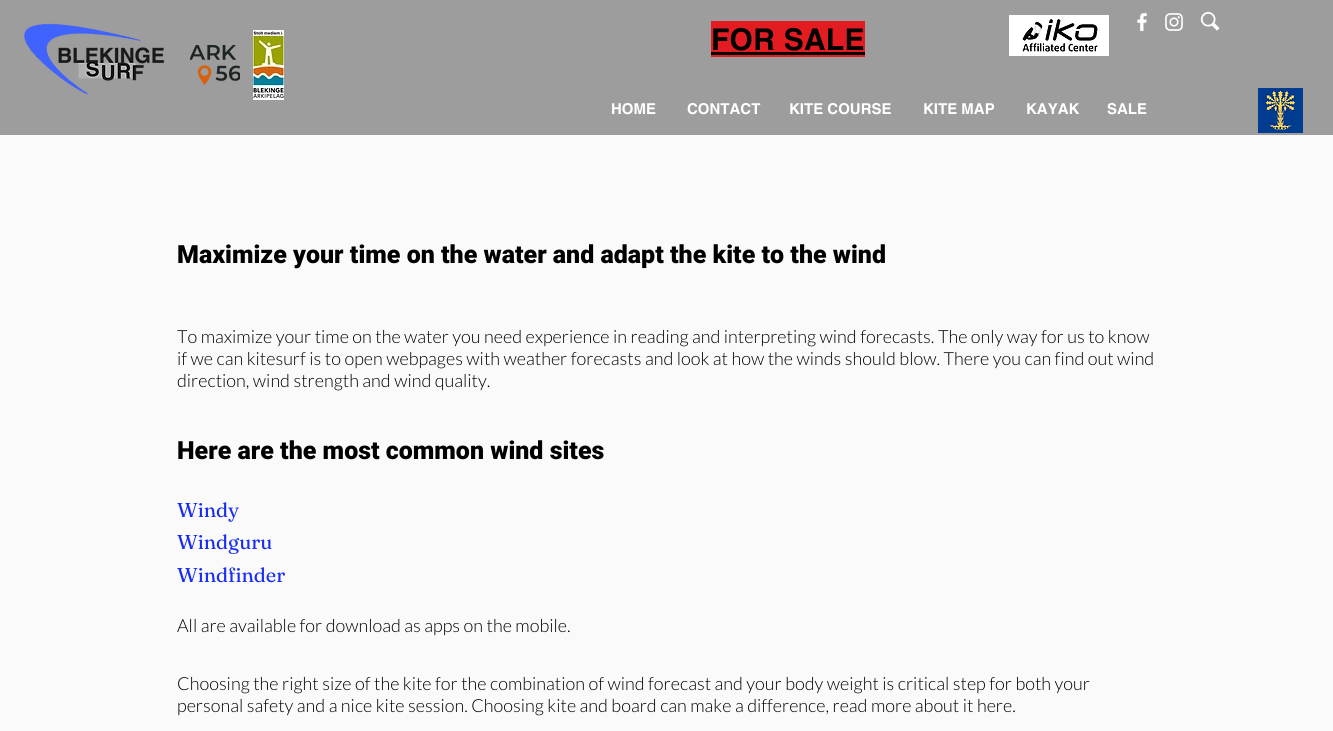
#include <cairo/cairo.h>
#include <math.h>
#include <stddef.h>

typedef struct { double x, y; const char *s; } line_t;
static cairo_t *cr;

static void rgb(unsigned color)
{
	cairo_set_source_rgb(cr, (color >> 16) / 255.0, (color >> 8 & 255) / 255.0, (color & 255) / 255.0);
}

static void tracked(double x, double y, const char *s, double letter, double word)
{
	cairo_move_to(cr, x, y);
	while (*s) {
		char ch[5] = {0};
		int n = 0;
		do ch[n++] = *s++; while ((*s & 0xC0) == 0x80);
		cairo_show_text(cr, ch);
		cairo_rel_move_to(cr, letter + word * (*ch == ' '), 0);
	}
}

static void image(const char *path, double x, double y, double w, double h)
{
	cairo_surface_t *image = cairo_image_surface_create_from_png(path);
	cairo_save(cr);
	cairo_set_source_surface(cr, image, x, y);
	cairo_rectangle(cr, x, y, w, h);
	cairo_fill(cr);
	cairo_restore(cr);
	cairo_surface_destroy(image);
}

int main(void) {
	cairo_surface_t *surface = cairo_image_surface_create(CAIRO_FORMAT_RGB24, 1333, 731);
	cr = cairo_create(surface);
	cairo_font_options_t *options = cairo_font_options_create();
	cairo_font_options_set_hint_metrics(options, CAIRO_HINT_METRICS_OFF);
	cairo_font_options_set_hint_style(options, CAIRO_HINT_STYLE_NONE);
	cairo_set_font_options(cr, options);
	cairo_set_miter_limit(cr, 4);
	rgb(0xfafafa);
	cairo_paint(cr);
	rgb(0x9d9d9d);
	cairo_rectangle(cr, 0, 0, 1333, 135);
	cairo_fill(cr);
	image("img/1.png", 24, 23, 141, 72);
	image("img/2.png", 190, 45, 50, 40);
	image("img/3.png", 253, 30, 31, 70);
	rgb(0xe21c21);
	cairo_rectangle(cr, 711, 21, 154, 36);
	cairo_fill(cr);
	rgb(0x000000);
	cairo_rectangle(cr, 711, 52, 154, 3);
	cairo_fill(cr);
	image("img/4.png", 1009, 15, 100, 41);
	image("img/5.png", 1137, 12, 10, 20);
	image("img/6.png", 1165, 13, 18, 18);
	image("img/7.png", 1200, 11, 20, 20);
	image("img/8.png", 1258, 88, 45, 45);
	cairo_select_font_face(cr, "helvetica", CAIRO_FONT_SLANT_NORMAL, CAIRO_FONT_WEIGHT_BOLD);
	cairo_set_font_size(cr, 30);
	tracked(711, 50, "FOR SALE", 0.25, 0);
	cairo_set_font_size(cr, 15);
	rgb(0xffffff);
	{
		static const line_t items[] = {
			{611, 114, "HOME"},
			{687, 114, "CONTACT"},
			{789, 114, "KITE COURSE"},
			{923, 114, "KITE MAP"},
			{1026, 114, "KAYAK"},
			{1107, 114, "SALE"},
		};
		for (size_t i = 0; i < sizeof items / sizeof *items; i++) {
			cairo_move_to(cr, items[i].x, items[i].y);
			cairo_show_text(cr, items[i].s);
		}
	}
	cairo_select_font_face(cr, "Roboto Black", CAIRO_FONT_SLANT_NORMAL, CAIRO_FONT_WEIGHT_NORMAL);
	cairo_set_font_size(cr, 25);
	rgb(0x000000);
	cairo_move_to(cr, 177, 263);
	cairo_show_text(cr, "Maximize your time on the water and adapt the kite to the wind");
	cairo_select_font_face(cr, "Lato Light", CAIRO_FONT_SLANT_NORMAL, CAIRO_FONT_WEIGHT_NORMAL);
	cairo_set_font_size(cr, 18);
	{
		static const line_t items[] = {
			{177, 343, "To maximize your time on the water you need experience in reading and interpreting wind forecasts. The only way for us to know"},
			{177, 365, "if we can kitesurf is to open webpages with weather forecasts and look at how the winds should blow. There you can find out wind"},
			{177, 387, "direction, wind strength and wind quality."},
		};
		for (size_t i = 0; i < sizeof items / sizeof *items; i++) {
			cairo_move_to(cr, items[i].x, items[i].y);
			cairo_show_text(cr, items[i].s);
		}
	}
	cairo_select_font_face(cr, "Roboto Black", CAIRO_FONT_SLANT_NORMAL, CAIRO_FONT_WEIGHT_NORMAL);
	cairo_set_font_size(cr, 25);
	cairo_move_to(cr, 177, 459);
	cairo_show_text(cr, "Here are the most common wind sites");
	cairo_select_font_face(cr, "Fraunces", CAIRO_FONT_SLANT_NORMAL, CAIRO_FONT_WEIGHT_NORMAL);
	cairo_set_font_size(cr, 20);
	rgb(0x1a2df3);
	{
		static const line_t items[] = {
			{177, 517, "Windy"},
			{177, 549, "Windguru"},
			{177, 582, "Windfinder"},
		};
		for (size_t i = 0; i < sizeof items / sizeof *items; i++) {
			cairo_move_to(cr, items[i].x, items[i].y);
			cairo_show_text(cr, items[i].s);
		}
	}
	cairo_select_font_face(cr, "Lato Light", CAIRO_FONT_SLANT_NORMAL, CAIRO_FONT_WEIGHT_NORMAL);
	cairo_set_font_size(cr, 18);
	rgb(0x000000);
	{
		static const line_t items[] = {
			{177, 632, "All are available for download as apps on the mobile."},
			{177, 690, "Choosing the right size of the kite for the combination of wind forecast and your body weight is critical step for both your"},
			{177, 712, "personal safety and a nice kite session. Choosing kite and board can make a difference, read more about it here."},
		};
		for (size_t i = 0; i < sizeof items / sizeof *items; i++) {
			cairo_move_to(cr, items[i].x, items[i].y);
			cairo_show_text(cr, items[i].s);
		}
	}
	cairo_surface_write_to_png(surface, "page.png");
	cairo_font_options_destroy(options);
	cairo_destroy(cr);
	cairo_surface_destroy(surface);
	return 0;
}
